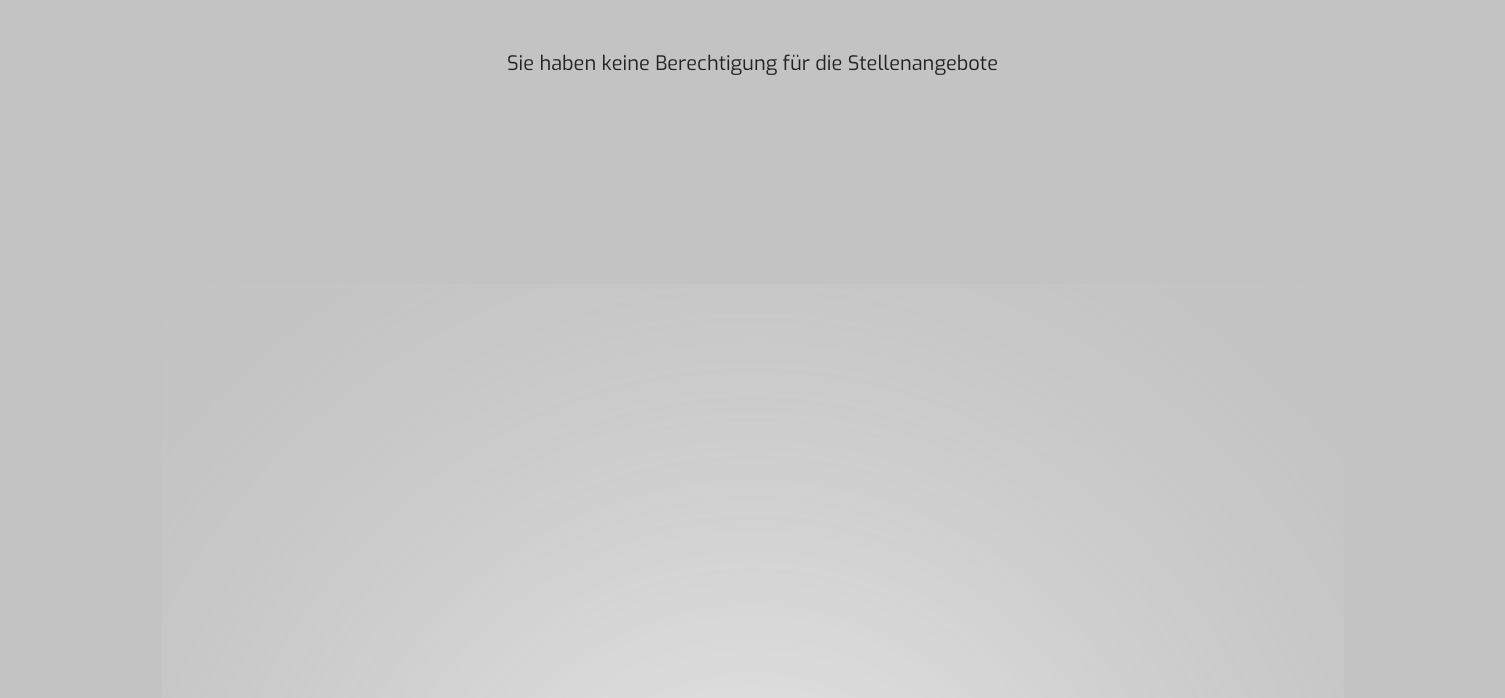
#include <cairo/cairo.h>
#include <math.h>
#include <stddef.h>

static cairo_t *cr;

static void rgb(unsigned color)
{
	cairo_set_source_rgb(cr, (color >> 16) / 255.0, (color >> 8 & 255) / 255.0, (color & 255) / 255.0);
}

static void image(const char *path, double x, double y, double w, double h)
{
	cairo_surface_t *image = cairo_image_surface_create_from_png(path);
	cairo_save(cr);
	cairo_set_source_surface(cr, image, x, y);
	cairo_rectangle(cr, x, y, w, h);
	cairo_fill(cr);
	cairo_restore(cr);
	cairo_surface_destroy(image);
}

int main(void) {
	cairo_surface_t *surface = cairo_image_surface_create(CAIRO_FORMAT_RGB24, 1505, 698);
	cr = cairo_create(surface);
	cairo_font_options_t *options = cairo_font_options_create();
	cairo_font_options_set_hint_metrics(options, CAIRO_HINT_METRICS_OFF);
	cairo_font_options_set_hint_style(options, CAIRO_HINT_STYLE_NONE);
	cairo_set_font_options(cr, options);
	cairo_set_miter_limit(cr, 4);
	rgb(0xc3c3c3);
	cairo_paint(cr);
	image("img/1.png", 162, 284, 1182, 414);
	cairo_select_font_face(cr, "Exo", CAIRO_FONT_SLANT_NORMAL, CAIRO_FONT_WEIGHT_NORMAL);
	cairo_set_font_size(cr, 20);
	rgb(0x222222);
	cairo_move_to(cr, 507, 70);
	cairo_show_text(cr, "Sie haben keine Berechtigung für die Stellenangebote");
	cairo_surface_write_to_png(surface, "page.png");
	cairo_font_options_destroy(options);
	cairo_destroy(cr);
	cairo_surface_destroy(surface);
	return 0;
}
